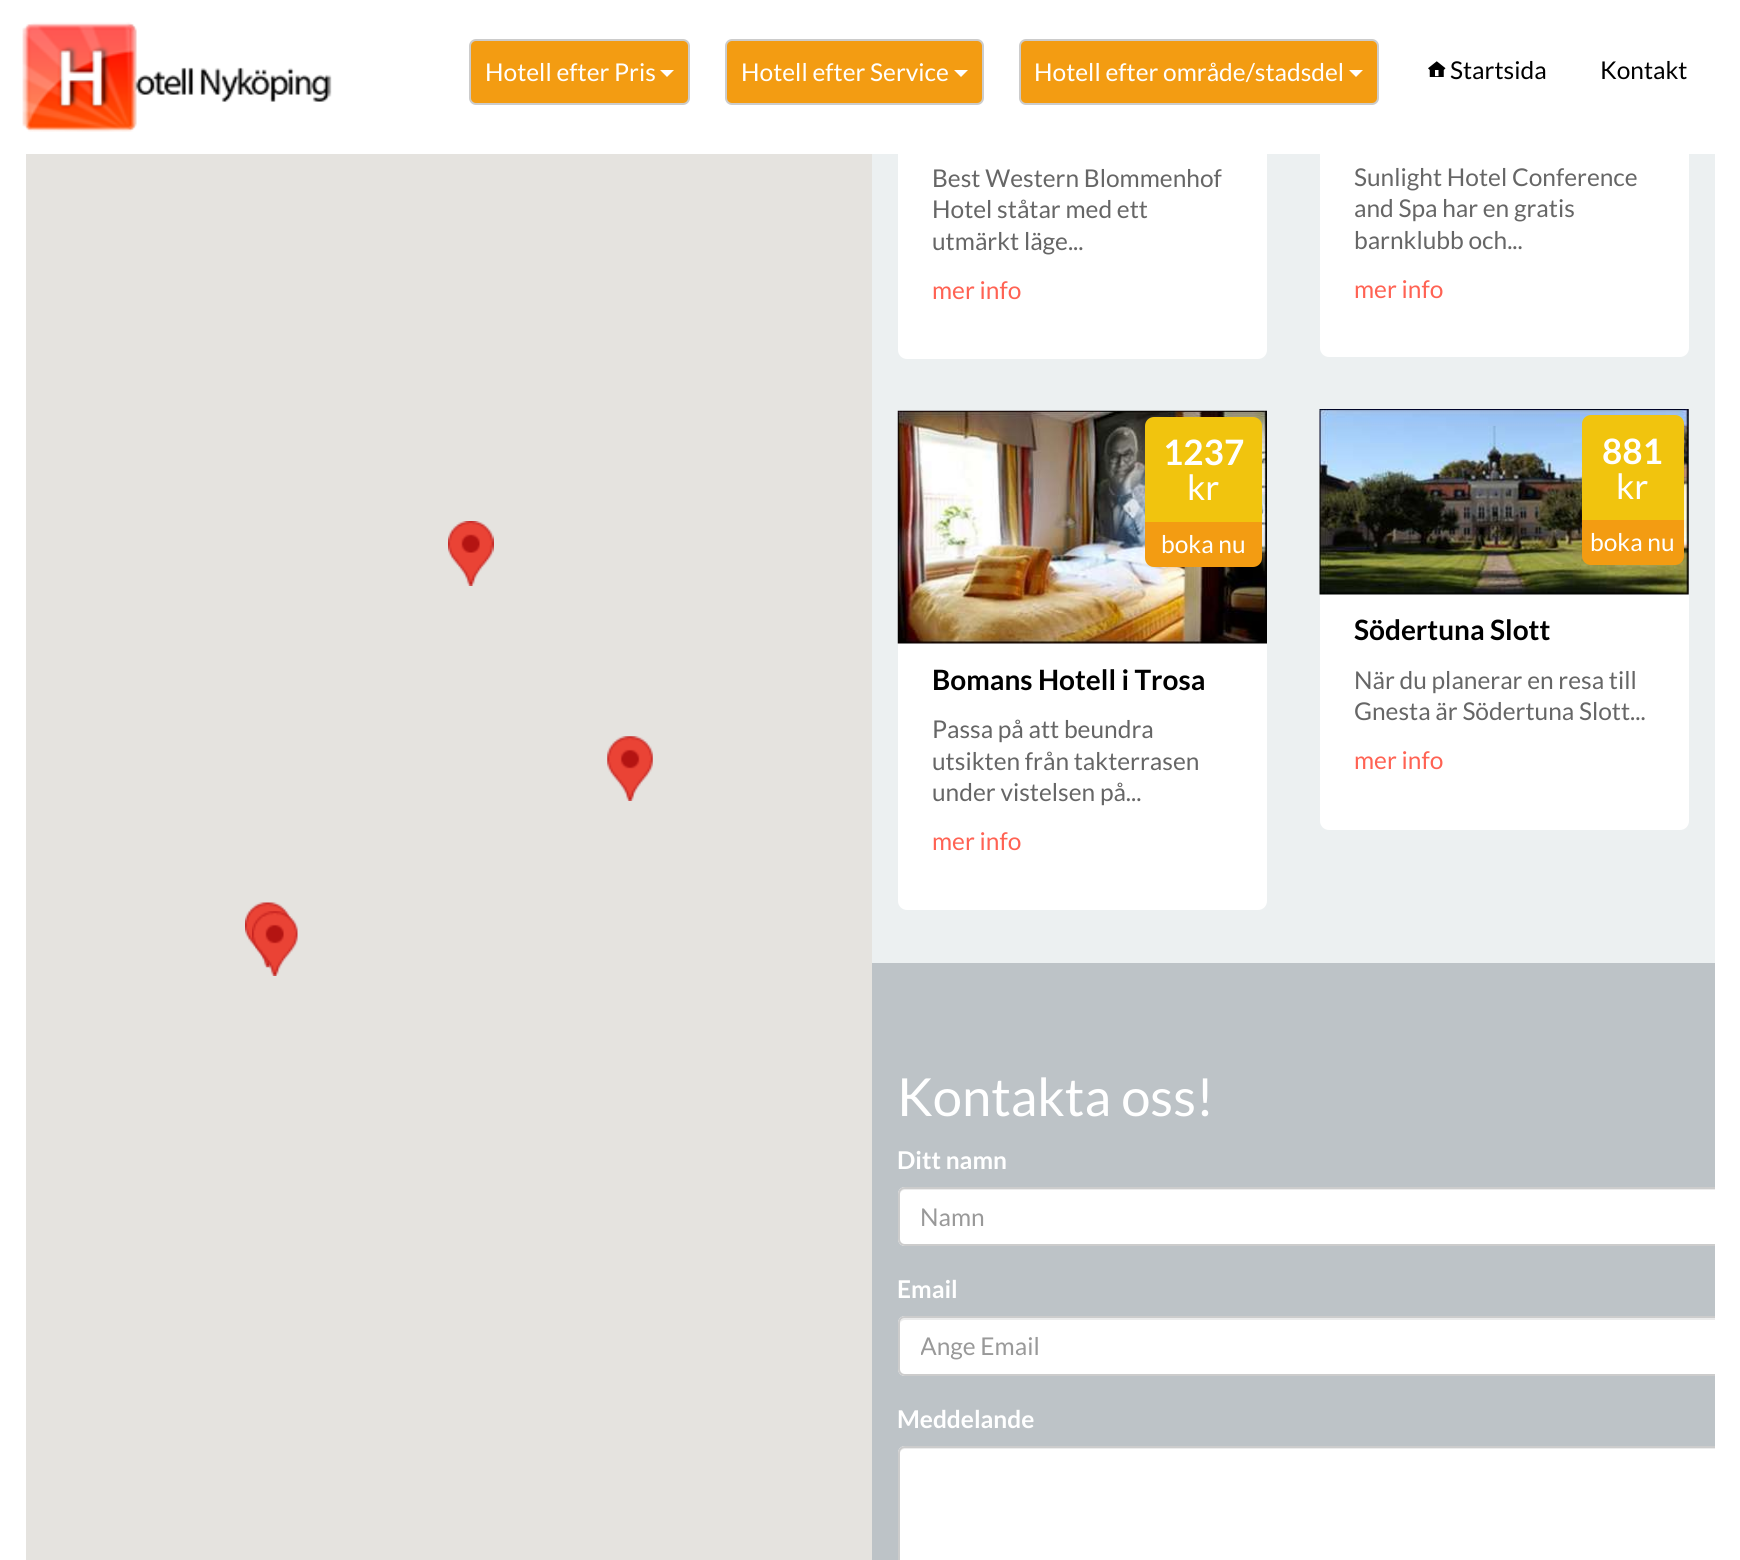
#include <cairo/cairo.h>
#include <math.h>
#include <stddef.h>

typedef struct { double x, y; const char *s; } line_t;
static cairo_t *cr;

static void rgb(unsigned color)
{
	cairo_set_source_rgb(cr, (color >> 16) / 255.0, (color >> 8 & 255) / 255.0, (color & 255) / 255.0);
}

static void rrect(double x, double y, double w, double h, double r)
{
	cairo_new_sub_path(cr);
	cairo_arc(cr, x + w - r, y + h - r, r, 0, M_PI / 2);
	cairo_arc(cr, x + r, y + h - r, r, M_PI / 2, M_PI);
	cairo_arc(cr, x + r, y + r, r, M_PI, 1.5 * M_PI);
	cairo_arc(cr, x + w - r, y + r, r, 1.5 * M_PI, 2 * M_PI);
	cairo_close_path(cr);
}

static void image(const char *path, double x, double y, double w, double h)
{
	cairo_surface_t *image = cairo_image_surface_create_from_png(path);
	cairo_save(cr);
	cairo_set_source_surface(cr, image, x, y);
	cairo_rectangle(cr, x, y, w, h);
	cairo_fill(cr);
	cairo_restore(cr);
	cairo_surface_destroy(image);
}

int main(void) {
	cairo_surface_t *surface = cairo_image_surface_create(CAIRO_FORMAT_RGB24, 1740, 1560);
	cr = cairo_create(surface);
	cairo_font_options_t *options = cairo_font_options_create();
	cairo_font_options_set_hint_metrics(options, CAIRO_HINT_METRICS_OFF);
	cairo_font_options_set_hint_style(options, CAIRO_HINT_STYLE_NONE);
	cairo_set_font_options(cr, options);
	cairo_set_miter_limit(cr, 4);
	rgb(0xffffff);
	cairo_paint(cr);
	image("img/1.png", 22, 22, 310, 110);
	rgb(0xf39c12);
	rrect(470, 40, 219, 64, 6);
	cairo_fill_preserve(cr);
	rgb(0xcccccc);
	cairo_stroke(cr);
	rgb(0xffffff);
	cairo_new_path(cr);
	cairo_move_to(cr, 660, 70);
	cairo_line_to(cr, 674, 70);
	cairo_line_to(cr, 667, 77);
	cairo_close_path(cr);
	cairo_fill(cr);
	rgb(0xecf0f1);
	cairo_rectangle(cr, 872, 154, 843, 809);
	cairo_fill(cr);
	rgb(0xffffff);
	rrect(898, -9, 369, 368, 9);
	cairo_fill(cr);
	rgb(0xf39c12);
	rrect(726, 40, 257, 64, 6);
	cairo_fill_preserve(cr);
	rgb(0xcccccc);
	cairo_stroke(cr);
	rgb(0xffffff);
	cairo_new_path(cr);
	cairo_move_to(cr, 954, 70);
	cairo_line_to(cr, 968, 70);
	cairo_line_to(cr, 961, 77);
	cairo_close_path(cr);
	cairo_fill(cr);
	rrect(1320, -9, 369, 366, 9);
	cairo_fill(cr);
	rgb(0xf39c12);
	rrect(1020, 40, 358, 64, 6);
	cairo_fill_preserve(cr);
	rgb(0xcccccc);
	cairo_stroke(cr);
	rgb(0xffffff);
	cairo_new_path(cr);
	cairo_move_to(cr, 1349, 70);
	cairo_line_to(cr, 1363, 70);
	cairo_line_to(cr, 1356, 77);
	cairo_close_path(cr);
	cairo_fill(cr);
	image("img/2.png", 1428, 61, 18, 16);
	rgb(0xe5e3df);
	cairo_rectangle(cr, 26, 154, 846, 1406);
	cairo_fill(cr);
	image("img/3.png", 448, 521, 46, 65);
	image("img/4.png", 607, 736, 46, 65);
	image("img/5.png", 245, 902, 46, 66);
	image("img/6.png", 252, 911, 46, 65);
	rgb(0xffffff);
	rrect(898, 411, 369, 499, 9);
	cairo_fill(cr);
	image("img/7.png", 897, 410, 370, 234);
	rgb(0xf1c40e);
	cairo_new_path(cr);
	cairo_move_to(cr, 1154, 417);
	cairo_line_to(cr, 1253, 417);
	cairo_curve_to(cr, 1258, 417, 1262, 421, 1262, 426);
	cairo_line_to(cr, 1262, 522);
	cairo_line_to(cr, 1145, 522);
	cairo_line_to(cr, 1145, 426);
	cairo_curve_to(cr, 1145, 421, 1149, 417, 1154, 417);
	cairo_close_path(cr);
	cairo_fill(cr);
	rgb(0xf39c12);
	cairo_new_path(cr);
	cairo_move_to(cr, 1145, 522);
	cairo_line_to(cr, 1262, 522);
	cairo_line_to(cr, 1262, 558);
	cairo_curve_to(cr, 1262, 563, 1258, 567, 1253, 567);
	cairo_line_to(cr, 1154, 567);
	cairo_curve_to(cr, 1149, 567, 1145, 563, 1145, 558);
	cairo_close_path(cr);
	cairo_fill(cr);
	rgb(0xffffff);
	rrect(1320, 410, 369, 420, 9);
	cairo_fill(cr);
	image("img/8.png", 1319, 409, 370, 186);
	rgb(0xf1c40e);
	cairo_new_path(cr);
	cairo_move_to(cr, 1591, 415);
	cairo_line_to(cr, 1675, 415);
	cairo_curve_to(cr, 1680, 415, 1684, 419, 1684, 424);
	cairo_line_to(cr, 1684, 520);
	cairo_line_to(cr, 1582, 520);
	cairo_line_to(cr, 1582, 424);
	cairo_curve_to(cr, 1582, 419, 1586, 415, 1591, 415);
	cairo_close_path(cr);
	cairo_fill(cr);
	rgb(0xf39c12);
	cairo_new_path(cr);
	cairo_move_to(cr, 1582, 520);
	cairo_line_to(cr, 1684, 520);
	cairo_line_to(cr, 1684, 556);
	cairo_curve_to(cr, 1684, 561, 1680, 565, 1675, 565);
	cairo_line_to(cr, 1591, 565);
	cairo_curve_to(cr, 1586, 565, 1582, 561, 1582, 556);
	cairo_close_path(cr);
	cairo_fill(cr);
	rgb(0xbdc3c7);
	cairo_rectangle(cr, 872, 963, 843, 597);
	cairo_fill(cr);
	rgb(0xffffff);
	cairo_new_path(cr);
	cairo_move_to(cr, 905, 1187);
	cairo_line_to(cr, 1715, 1187);
	cairo_line_to(cr, 1715, 1246);
	cairo_line_to(cr, 905, 1246);
	cairo_curve_to(cr, 901, 1246, 898, 1243, 898, 1239);
	cairo_line_to(cr, 898, 1194);
	cairo_curve_to(cr, 898, 1190, 901, 1187, 905, 1187);
	cairo_close_path(cr);
	cairo_fill(cr);
	cairo_save(cr);
	cairo_rectangle(cr, 872, 0, 843, 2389);
	cairo_clip(cr);
	rgb(0xececec);
	cairo_new_path(cr);
	cairo_move_to(cr, 905, 1190);
	cairo_line_to(cr, 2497, 1190);
	cairo_line_to(cr, 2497, 1188);
	cairo_line_to(cr, 905, 1188);
	cairo_curve_to(cr, 901, 1188, 900, 1192, 900, 1195);
	cairo_curve_to(cr, 900, 1192, 902, 1190, 905, 1190);
	cairo_close_path(cr);
	cairo_fill(cr);
	cairo_new_path(cr);
	cairo_move_to(cr, 905, 1188);
	cairo_line_to(cr, 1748, 1188);
	cairo_line_to(cr, 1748, 1245);
	cairo_line_to(cr, 905, 1245);
	cairo_curve_to(cr, 901.5, 1245, 899, 1242.5, 899, 1239);
	cairo_line_to(cr, 899, 1194);
	cairo_curve_to(cr, 899, 1190.5, 901.5, 1188, 905, 1188);
	cairo_close_path(cr);
	rgb(0xcccccc);
	cairo_stroke(cr);
	cairo_restore(cr);
	cairo_new_path(cr);
	cairo_move_to(cr, 905, 1316);
	cairo_line_to(cr, 1715, 1316);
	cairo_line_to(cr, 1715, 1376);
	cairo_line_to(cr, 905, 1376);
	cairo_curve_to(cr, 901, 1376, 898, 1373, 898, 1369);
	cairo_line_to(cr, 898, 1323);
	cairo_curve_to(cr, 898, 1319, 901, 1316, 905, 1316);
	cairo_close_path(cr);
	cairo_fill(cr);
	cairo_save(cr);
	cairo_rectangle(cr, 872, 0, 843, 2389);
	cairo_clip(cr);
	rgb(0xececec);
	cairo_new_path(cr);
	cairo_move_to(cr, 905, 1320);
	cairo_line_to(cr, 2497, 1320);
	cairo_line_to(cr, 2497, 1318);
	cairo_line_to(cr, 905, 1318);
	cairo_curve_to(cr, 901, 1318, 900, 1322, 900, 1325);
	cairo_curve_to(cr, 900, 1322, 902, 1320, 905, 1320);
	cairo_close_path(cr);
	cairo_fill(cr);
	cairo_new_path(cr);
	cairo_move_to(cr, 905, 1317);
	cairo_line_to(cr, 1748, 1317);
	cairo_line_to(cr, 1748, 1375);
	cairo_line_to(cr, 905, 1375);
	cairo_curve_to(cr, 901.5, 1375, 899, 1372.5, 899, 1369);
	cairo_line_to(cr, 899, 1323);
	cairo_curve_to(cr, 899, 1319.5, 901.5, 1317, 905, 1317);
	cairo_close_path(cr);
	rgb(0xcccccc);
	cairo_stroke(cr);
	cairo_restore(cr);
	cairo_new_path(cr);
	cairo_move_to(cr, 905, 1446);
	cairo_line_to(cr, 1715, 1446);
	cairo_line_to(cr, 1715, 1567);
	cairo_line_to(cr, 905, 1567);
	cairo_curve_to(cr, 901, 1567, 898, 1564, 898, 1560);
	cairo_line_to(cr, 898, 1453);
	cairo_curve_to(cr, 898, 1449, 901, 1446, 905, 1446);
	cairo_close_path(cr);
	cairo_fill(cr);
	cairo_save(cr);
	cairo_rectangle(cr, 872, 0, 843, 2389);
	cairo_clip(cr);
	rgb(0xececec);
	cairo_new_path(cr);
	cairo_move_to(cr, 905, 1449);
	cairo_line_to(cr, 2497, 1449);
	cairo_line_to(cr, 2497, 1447);
	cairo_line_to(cr, 905, 1447);
	cairo_curve_to(cr, 901, 1447, 900, 1451, 900, 1454);
	cairo_curve_to(cr, 900, 1451, 902, 1449, 905, 1449);
	cairo_close_path(cr);
	cairo_fill(cr);
	cairo_new_path(cr);
	cairo_move_to(cr, 905, 1447);
	cairo_line_to(cr, 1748, 1447);
	cairo_line_to(cr, 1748, 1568);
	cairo_line_to(cr, 905, 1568);
	cairo_curve_to(cr, 901.5, 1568, 899, 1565.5, 899, 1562);
	cairo_line_to(cr, 899, 1453);
	cairo_curve_to(cr, 899, 1449.5, 901.5, 1447, 905, 1447);
	cairo_close_path(cr);
	rgb(0xcccccc);
	cairo_stroke(cr);
	cairo_restore(cr);
	cairo_select_font_face(cr, "Lato", CAIRO_FONT_SLANT_NORMAL, CAIRO_FONT_WEIGHT_NORMAL);
	cairo_set_font_size(cr, 24.5);
	{
		static const line_t items[] = {
			{485, 81, "Hotell efter Pris"},
			{741, 81, "Hotell efter Service"},
			{1034, 81, "Hotell efter område/stadsdel"},
		};
		for (size_t i = 0; i < sizeof items / sizeof *items; i++) {
			cairo_move_to(cr, items[i].x, items[i].y);
			cairo_show_text(cr, items[i].s);
		}
	}
	rgb(0x000000);
	cairo_move_to(cr, 1450, 79);
	cairo_show_text(cr, "Startsida");
	cairo_move_to(cr, 1600, 79);
	cairo_show_text(cr, "Kontakt");
	rgb(0x666666);
	{
		static const line_t items[] = {
			{932, 187, "Best Western Blommenhof"},
			{932, 218, "Hotel ståtar med ett"},
			{932, 250, "utmärkt läge..."},
		};
		for (size_t i = 0; i < sizeof items / sizeof *items; i++) {
			cairo_move_to(cr, items[i].x, items[i].y);
			cairo_show_text(cr, items[i].s);
		}
	}
	rgb(0xff6253);
	cairo_move_to(cr, 932, 299);
	cairo_show_text(cr, "mer info");
	cairo_select_font_face(cr, "Lato", CAIRO_FONT_SLANT_NORMAL, CAIRO_FONT_WEIGHT_BOLD);
	cairo_set_font_size(cr, 35);
	rgb(0xffffff);
	cairo_move_to(cr, 1163, 465);
	cairo_show_text(cr, "1237");
	cairo_select_font_face(cr, "Lato", CAIRO_FONT_SLANT_NORMAL, CAIRO_FONT_WEIGHT_NORMAL);
	cairo_move_to(cr, 1187, 500);
	cairo_show_text(cr, "kr");
	cairo_set_font_size(cr, 24.5);
	cairo_move_to(cr, 1161, 553);
	cairo_show_text(cr, "boka nu");
	cairo_select_font_face(cr, "Lato", CAIRO_FONT_SLANT_NORMAL, CAIRO_FONT_WEIGHT_BOLD);
	cairo_set_font_size(cr, 28);
	rgb(0x000000);
	cairo_move_to(cr, 932, 690);
	cairo_show_text(cr, "Bomans Hotell i Trosa");
	cairo_select_font_face(cr, "Lato", CAIRO_FONT_SLANT_NORMAL, CAIRO_FONT_WEIGHT_NORMAL);
	cairo_set_font_size(cr, 24.5);
	rgb(0x666666);
	{
		static const line_t items[] = {
			{932, 738, "Passa på att beundra"},
			{932, 770, "utsikten från takterrasen"},
			{932, 801, "under vistelsen på..."},
		};
		for (size_t i = 0; i < sizeof items / sizeof *items; i++) {
			cairo_move_to(cr, items[i].x, items[i].y);
			cairo_show_text(cr, items[i].s);
		}
	}
	rgb(0xff6253);
	cairo_move_to(cr, 932, 850);
	cairo_show_text(cr, "mer info");
	rgb(0x666666);
	{
		static const line_t items[] = {
			{1354, 186, "Sunlight Hotel Conference"},
			{1354, 217, "and Spa har en gratis"},
			{1354, 249, "barnklubb och..."},
		};
		for (size_t i = 0; i < sizeof items / sizeof *items; i++) {
			cairo_move_to(cr, items[i].x, items[i].y);
			cairo_show_text(cr, items[i].s);
		}
	}
	rgb(0xff6253);
	cairo_move_to(cr, 1354, 298);
	cairo_show_text(cr, "mer info");
	cairo_select_font_face(cr, "Lato", CAIRO_FONT_SLANT_NORMAL, CAIRO_FONT_WEIGHT_BOLD);
	cairo_set_font_size(cr, 35);
	rgb(0xffffff);
	cairo_move_to(cr, 1602, 464);
	cairo_show_text(cr, "881");
	cairo_select_font_face(cr, "Lato", CAIRO_FONT_SLANT_NORMAL, CAIRO_FONT_WEIGHT_NORMAL);
	cairo_move_to(cr, 1616, 499);
	cairo_show_text(cr, "kr");
	cairo_set_font_size(cr, 24.5);
	cairo_move_to(cr, 1590, 551);
	cairo_show_text(cr, "boka nu");
	cairo_select_font_face(cr, "Lato", CAIRO_FONT_SLANT_NORMAL, CAIRO_FONT_WEIGHT_BOLD);
	cairo_set_font_size(cr, 28);
	rgb(0x000000);
	cairo_move_to(cr, 1354, 640);
	cairo_show_text(cr, "Södertuna Slott");
	cairo_select_font_face(cr, "Lato", CAIRO_FONT_SLANT_NORMAL, CAIRO_FONT_WEIGHT_NORMAL);
	cairo_set_font_size(cr, 24.5);
	rgb(0x666666);
	cairo_move_to(cr, 1354, 689);
	cairo_show_text(cr, "När du planerar en resa till");
	cairo_move_to(cr, 1354, 720);
	cairo_show_text(cr, "Gnesta är Södertuna Slott...");
	rgb(0xff6253);
	cairo_move_to(cr, 1354, 769);
	cairo_show_text(cr, "mer info");
	cairo_set_font_size(cr, 52.5);
	rgb(0xffffff);
	cairo_move_to(cr, 897, 1116);
	cairo_show_text(cr, "Kontakta oss!");
	cairo_select_font_face(cr, "Lato", CAIRO_FONT_SLANT_NORMAL, CAIRO_FONT_WEIGHT_BOLD);
	cairo_set_font_size(cr, 24.5);
	cairo_move_to(cr, 897, 1169);
	cairo_show_text(cr, "Ditt namn");
	cairo_select_font_face(cr, "Lato", CAIRO_FONT_SLANT_NORMAL, CAIRO_FONT_WEIGHT_NORMAL);
	rgb(0x999999);
	cairo_move_to(cr, 920, 1226);
	cairo_show_text(cr, "Namn");
	cairo_select_font_face(cr, "Lato", CAIRO_FONT_SLANT_NORMAL, CAIRO_FONT_WEIGHT_BOLD);
	rgb(0xffffff);
	cairo_move_to(cr, 897, 1298);
	cairo_show_text(cr, "Email");
	cairo_save(cr);
	cairo_rectangle(cr, 921, 1330, 794, 30);
	cairo_clip(cr);
	cairo_select_font_face(cr, "Lato", CAIRO_FONT_SLANT_NORMAL, CAIRO_FONT_WEIGHT_NORMAL);
	rgb(0x999999);
	cairo_move_to(cr, 920, 1355);
	cairo_show_text(cr, "Ange Email");
	cairo_restore(cr);
	cairo_move_to(cr, 897, 1428);
	cairo_show_text(cr, "Meddelande");
	cairo_surface_write_to_png(surface, "page.png");
	cairo_font_options_destroy(options);
	cairo_destroy(cr);
	cairo_surface_destroy(surface);
	return 0;
}
